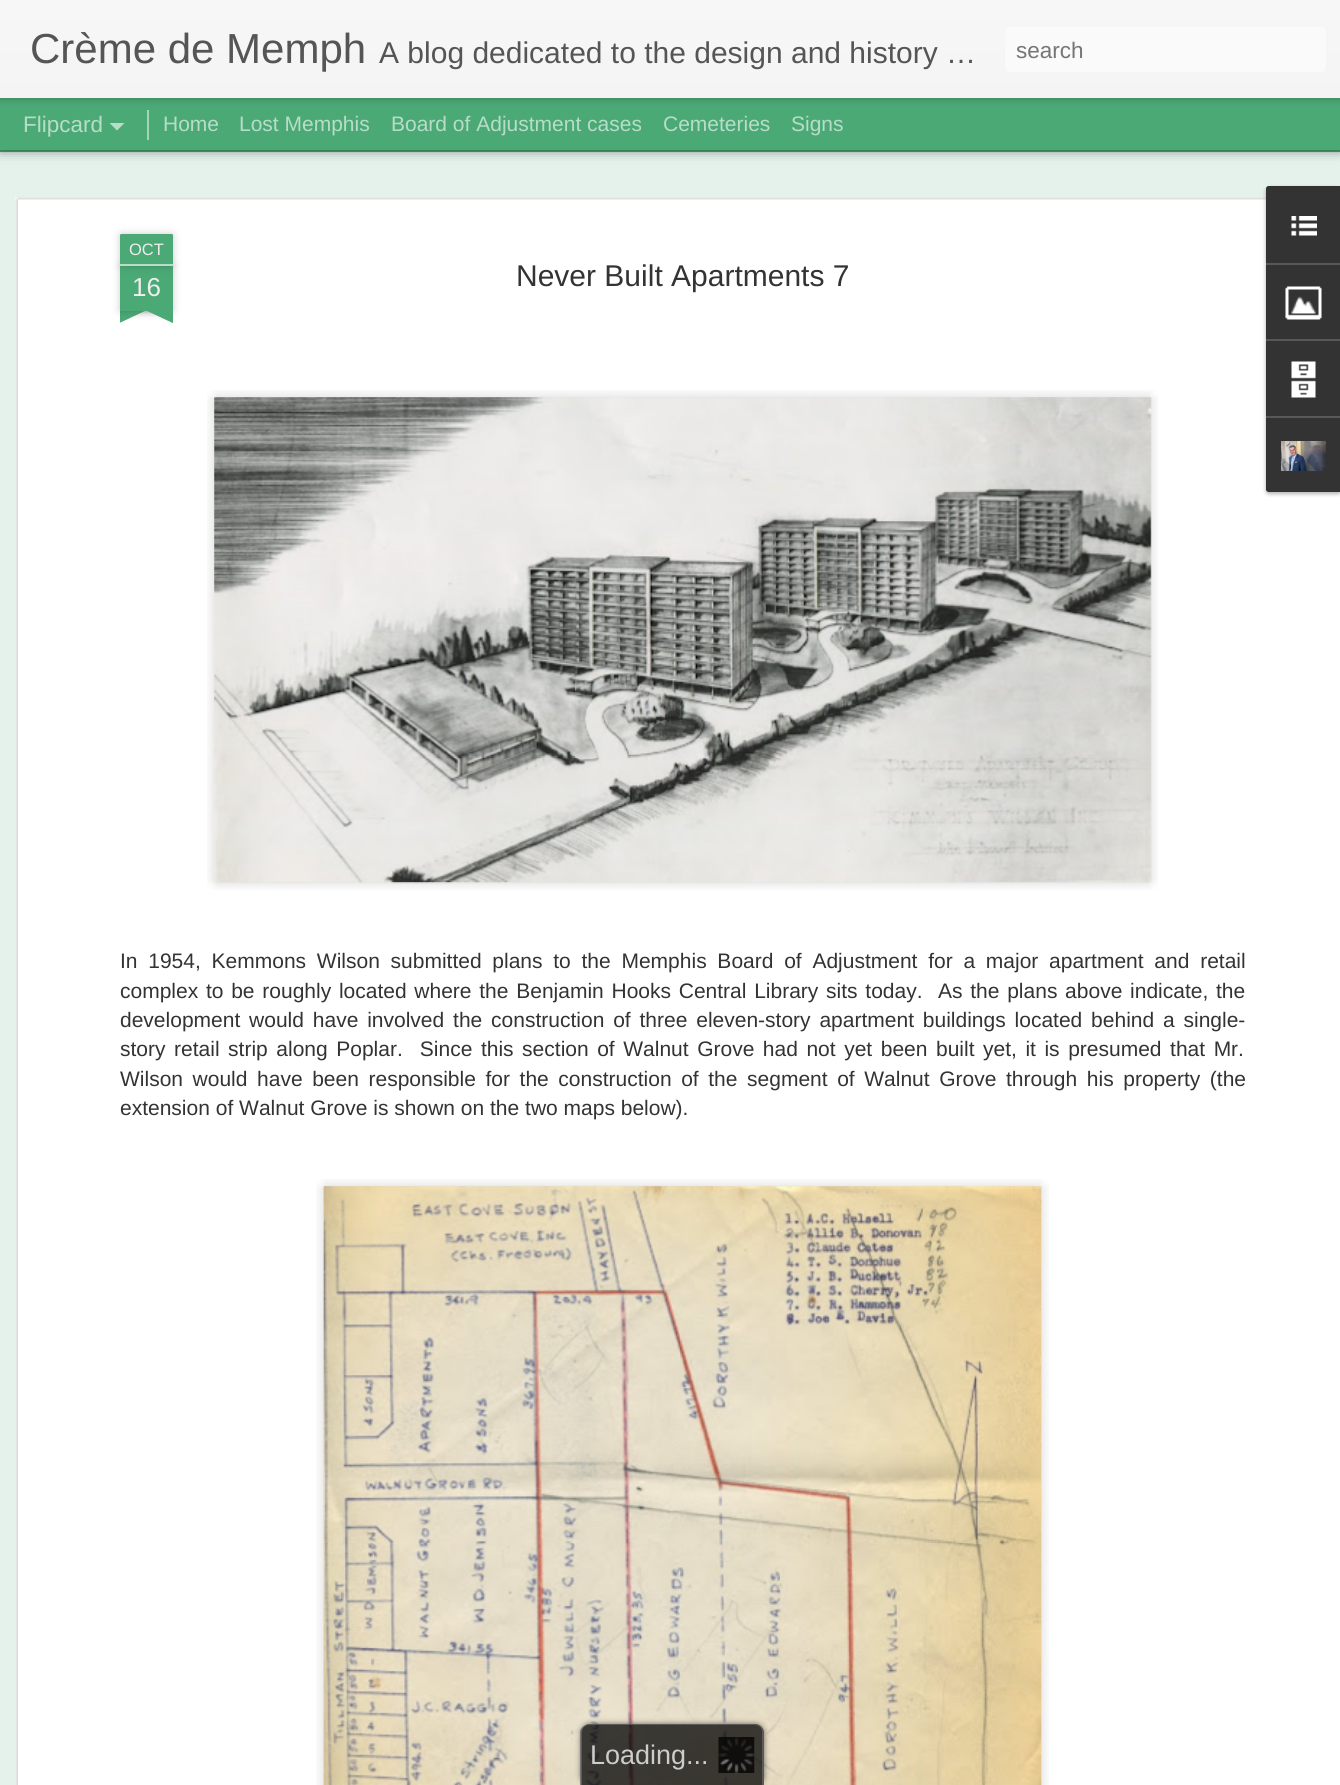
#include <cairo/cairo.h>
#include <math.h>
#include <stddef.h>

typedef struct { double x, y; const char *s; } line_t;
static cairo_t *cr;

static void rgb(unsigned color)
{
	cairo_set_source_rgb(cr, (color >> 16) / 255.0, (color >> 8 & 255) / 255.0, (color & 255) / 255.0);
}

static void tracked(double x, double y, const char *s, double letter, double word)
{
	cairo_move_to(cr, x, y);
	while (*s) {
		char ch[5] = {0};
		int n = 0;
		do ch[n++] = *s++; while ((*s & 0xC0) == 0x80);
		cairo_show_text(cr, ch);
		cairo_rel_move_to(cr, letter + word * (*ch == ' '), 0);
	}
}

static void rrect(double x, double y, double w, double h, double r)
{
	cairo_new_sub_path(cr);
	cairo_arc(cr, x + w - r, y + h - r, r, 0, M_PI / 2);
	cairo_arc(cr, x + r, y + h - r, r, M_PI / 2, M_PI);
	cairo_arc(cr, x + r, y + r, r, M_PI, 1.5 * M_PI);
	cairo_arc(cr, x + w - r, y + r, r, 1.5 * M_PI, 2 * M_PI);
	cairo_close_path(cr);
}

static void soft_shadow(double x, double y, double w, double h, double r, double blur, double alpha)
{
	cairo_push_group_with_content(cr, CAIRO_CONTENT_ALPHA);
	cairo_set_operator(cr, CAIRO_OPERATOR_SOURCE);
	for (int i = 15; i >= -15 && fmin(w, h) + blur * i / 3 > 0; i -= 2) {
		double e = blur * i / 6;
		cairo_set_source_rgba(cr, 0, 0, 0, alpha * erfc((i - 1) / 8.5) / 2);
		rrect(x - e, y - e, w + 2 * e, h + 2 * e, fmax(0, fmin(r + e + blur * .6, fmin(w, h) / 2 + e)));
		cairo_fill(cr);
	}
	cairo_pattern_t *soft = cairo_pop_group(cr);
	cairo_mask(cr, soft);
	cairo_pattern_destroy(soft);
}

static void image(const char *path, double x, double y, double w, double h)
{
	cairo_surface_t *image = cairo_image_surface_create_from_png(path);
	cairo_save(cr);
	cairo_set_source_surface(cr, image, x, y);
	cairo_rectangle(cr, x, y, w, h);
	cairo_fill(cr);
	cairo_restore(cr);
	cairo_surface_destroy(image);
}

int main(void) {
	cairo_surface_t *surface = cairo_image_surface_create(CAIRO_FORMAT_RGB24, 1340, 1785);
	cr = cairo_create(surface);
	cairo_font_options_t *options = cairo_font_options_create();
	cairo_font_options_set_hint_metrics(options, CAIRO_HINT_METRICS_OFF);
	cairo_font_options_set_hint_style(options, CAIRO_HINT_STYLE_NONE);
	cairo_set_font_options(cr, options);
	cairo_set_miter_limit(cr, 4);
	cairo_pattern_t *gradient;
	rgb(0x4ba976);
	cairo_paint(cr);
	rgb(0xe4f2eb);
	cairo_rectangle(cr, 0, 152, 1340, 1633);
	cairo_fill(cr);
	rgb(0x000000);
	soft_shadow(0, 98, 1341, 52, 0, 6, 0.5);
	rgb(0x4ba976);
	cairo_rectangle(cr, 0, 98, 1340, 52);
	cairo_fill(cr);
	rgb(0xa5d4bb);
	cairo_rectangle(cr, 147, 110, 2, 30);
	cairo_fill(cr);
	rgb(0x000000);
	soft_shadow(0, 0, 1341, 98, 0, 4, 0.3);
	gradient = cairo_pattern_create_linear(0, 0, 0, 98);
	cairo_pattern_add_color_stop_rgba(gradient, 0, 0.969, 0.969, 0.969, 1);
	cairo_pattern_add_color_stop_rgba(gradient, 1, 0.957, 0.957, 0.957, 1);
	cairo_set_source(cr, gradient);
	cairo_pattern_destroy(gradient);
	cairo_rectangle(cr, 0, 0, 1340, 98);
	cairo_fill(cr);
	rgb(0xfafafa);
	rrect(1005, 27, 321, 45, 5);
	cairo_fill(cr);
	rgb(0xb7ddc8);
	cairo_new_path(cr);
	cairo_move_to(cr, 109.5, 123);
	cairo_line_to(cr, 124.5, 123);
	cairo_line_to(cr, 117, 130.5);
	cairo_close_path(cr);
	cairo_fill(cr);
	rgb(0xffffff);
	cairo_rectangle(cr, 15, 197, 1325, 1588);
	cairo_fill(cr);
	image("img/1.png", 15, 197, 1251, 1588);
	rgb(0x000000);
	soft_shadow(120, 266, 53, 45, 0, 4, 0.2);
	rgb(0x4ba976);
	cairo_rectangle(cr, 120, 266, 53, 45);
	cairo_fill(cr);
	rgb(0x000000);
	soft_shadow(120, 234, 53, 32, 1.5, 4, 0.2);
	rgb(0x4ba976);
	cairo_new_path(cr);
	cairo_move_to(cr, 121.5, 234);
	cairo_line_to(cr, 171.5, 234);
	cairo_curve_to(cr, 172.5, 234, 173, 234.5, 173, 235.5);
	cairo_line_to(cr, 173, 266);
	cairo_line_to(cr, 120, 266);
	cairo_line_to(cr, 120, 235.5);
	cairo_curve_to(cr, 120, 234.5, 120.5, 234, 121.5, 234);
	cairo_close_path(cr);
	cairo_fill(cr);
	rgb(0xb7ddc8);
	cairo_rectangle(cr, 120, 264, 53, 2);
	cairo_fill(cr);
	cairo_save(cr);
	cairo_rectangle(cr, 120, 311, 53, 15);
	cairo_clip(cr);
	rgb(0x000000);
	soft_shadow(107, 296, 75, 15, 0, 4, 0.2);
	cairo_restore(cr);
	cairo_save(cr);
	cairo_rectangle(cr, 120, 311, 53, 15);
	cairo_clip(cr);
	rgb(0x4ba976);
	cairo_new_path(cr);
	cairo_move_to(cr, 107, 312);
	cairo_line_to(cr, 175, 280);
	cairo_line_to(cr, 181, 294);
	cairo_line_to(cr, 113, 326);
	cairo_close_path(cr);
	cairo_fill(cr);
	cairo_restore(cr);
	cairo_save(cr);
	cairo_rectangle(cr, 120, 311, 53, 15);
	cairo_clip(cr);
	rgb(0x000000);
	soft_shadow(111, 296, 75, 15, 0, 4, 0.2);
	cairo_restore(cr);
	cairo_save(cr);
	cairo_rectangle(cr, 120, 311, 53, 15);
	cairo_clip(cr);
	rgb(0x4ba976);
	cairo_new_path(cr);
	cairo_move_to(cr, 118, 280);
	cairo_line_to(cr, 186, 312);
	cairo_line_to(cr, 179, 326);
	cairo_line_to(cr, 111, 294);
	cairo_close_path(cr);
	cairo_fill(cr);
	cairo_restore(cr);
	image("img/2.png", 207, 390, 951, 500);
	image("img/3.png", 214, 397, 938, 487);
	image("img/4.png", 316, 1179, 733, 606);
	image("img/5.png", 323, 1185, 719, 600);
	rgb(0x000000);
	soft_shadow(1266, 188, 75, 306, 3, 2, 0.3);
	rgb(0x333333);
	cairo_new_path(cr);
	cairo_move_to(cr, 1269, 186);
	cairo_line_to(cr, 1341, 186);
	cairo_line_to(cr, 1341, 492);
	cairo_line_to(cr, 1269, 492);
	cairo_curve_to(cr, 1267.5, 492, 1266, 490.5, 1266, 489);
	cairo_line_to(cr, 1266, 189);
	cairo_curve_to(cr, 1266, 187.5, 1267.5, 186, 1269, 186);
	cairo_close_path(cr);
	cairo_fill(cr);
	cairo_new_path(cr);
	cairo_move_to(cr, 1269, 186);
	cairo_line_to(cr, 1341, 186);
	cairo_line_to(cr, 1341, 263);
	cairo_line_to(cr, 1266, 263);
	cairo_line_to(cr, 1266, 189);
	cairo_curve_to(cr, 1266, 187.5, 1267.5, 186, 1269, 186);
	cairo_close_path(cr);
	cairo_fill(cr);
	image("img/6.png", 1291, 216, 26, 20);
	rgb(0x585858);
	cairo_rectangle(cr, 1266, 263, 74, 2);
	cairo_fill(cr);
	image("img/7.png", 1285, 286, 37, 34);
	cairo_rectangle(cr, 1266, 339, 74, 2);
	cairo_fill(cr);
	image("img/8.png", 1291, 361, 25, 37);
	rgb(0x333333);
	cairo_new_path(cr);
	cairo_move_to(cr, 1266, 416);
	cairo_line_to(cr, 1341, 416);
	cairo_line_to(cr, 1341, 492);
	cairo_line_to(cr, 1269, 492);
	cairo_curve_to(cr, 1267.5, 492, 1266, 490.5, 1266, 489);
	cairo_close_path(cr);
	cairo_fill(cr);
	rgb(0x585858);
	cairo_rectangle(cr, 1266, 416, 74, 2);
	cairo_fill(cr);
	image("img/9.png", 1281, 441, 45, 30);
	cairo_save(cr);
	cairo_set_fill_rule(cr, CAIRO_FILL_RULE_EVEN_ODD);
	cairo_new_path(cr);
	cairo_move_to(cr, 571, 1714);
	cairo_line_to(cr, 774, 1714);
	cairo_line_to(cr, 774, 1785);
	cairo_line_to(cr, 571, 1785);
	cairo_close_path(cr);
	cairo_move_to(cr, 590, 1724);
	cairo_line_to(cr, 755, 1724);
	cairo_curve_to(cr, 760, 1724, 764, 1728, 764, 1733);
	cairo_line_to(cr, 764, 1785);
	cairo_line_to(cr, 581, 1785);
	cairo_line_to(cr, 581, 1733);
	cairo_curve_to(cr, 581, 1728, 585, 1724, 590, 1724);
	cairo_close_path(cr);
	cairo_clip(cr);
	rgb(0x333333);
	soft_shadow(581, 1724, 183, 61, 9, 3, 0.75);
	cairo_restore(cr);
	cairo_set_source_rgba(cr, 0, 0, 0, 0.75);
	cairo_new_path(cr);
	cairo_move_to(cr, 590, 1724);
	cairo_line_to(cr, 755, 1724);
	cairo_curve_to(cr, 760, 1724, 764, 1728, 764, 1733);
	cairo_line_to(cr, 764, 1785);
	cairo_line_to(cr, 581, 1785);
	cairo_line_to(cr, 581, 1733);
	cairo_curve_to(cr, 581, 1728, 585, 1724, 590, 1724);
	cairo_close_path(cr);
	cairo_fill(cr);
	cairo_set_source_rgba(cr, 0.4, 0.4, 0.4, 0.75);
	cairo_set_fill_rule(cr, CAIRO_FILL_RULE_EVEN_ODD);
	cairo_new_path(cr);
	cairo_move_to(cr, 590, 1724);
	cairo_line_to(cr, 754, 1724);
	cairo_curve_to(cr, 759, 1724, 764, 1728, 764, 1732);
	cairo_line_to(cr, 764, 1785);
	cairo_line_to(cr, 580, 1785);
	cairo_line_to(cr, 580, 1732);
	cairo_curve_to(cr, 580, 1728, 585, 1724, 590, 1724);
	cairo_close_path(cr);
	cairo_move_to(cr, 590, 1725);
	cairo_line_to(cr, 754, 1725);
	cairo_curve_to(cr, 759, 1725, 762, 1728, 762, 1732);
	cairo_line_to(cr, 762, 1785);
	cairo_line_to(cr, 582, 1785);
	cairo_line_to(cr, 582, 1732);
	cairo_curve_to(cr, 582, 1728, 585, 1725, 590, 1725);
	cairo_close_path(cr);
	cairo_fill(cr);
	image("img/10.png", 718, 1737, 37, 36);
	cairo_select_font_face(cr, "Liberation Sans", CAIRO_FONT_SLANT_NORMAL, CAIRO_FONT_WEIGHT_NORMAL);
	cairo_set_font_size(cr, 42);
	rgb(0x555555);
	cairo_move_to(cr, 30, 63);
	cairo_show_text(cr, "Crème de Memph");
	cairo_set_font_size(cr, 30);
	cairo_move_to(cr, 379, 63);
	cairo_show_text(cr, "A blog dedicated to the design and history …");
	cairo_set_font_size(cr, 22.5);
	rgb(0x757575);
	cairo_move_to(cr, 1016, 58);
	cairo_show_text(cr, "search");
	rgb(0xb7ddc8);
	cairo_move_to(cr, 23, 132);
	cairo_show_text(cr, "Flipcard");
	cairo_set_font_size(cr, 21);
	{
		static const line_t items[] = {
			{163, 131, "Home"},
			{239, 131, "Lost Memphis"},
			{391, 131, "Board of Adjustment cases"},
			{663, 131, "Cemeteries"},
			{791, 131, "Signs"},
		};
		for (size_t i = 0; i < sizeof items / sizeof *items; i++) {
			cairo_move_to(cr, items[i].x, items[i].y);
			cairo_show_text(cr, items[i].s);
		}
	}
	cairo_set_font_size(cr, 16.5);
	rgb(0xeeeeee);
	cairo_move_to(cr, 129, 255);
	cairo_show_text(cr, "OCT");
	cairo_set_font_size(cr, 26);
	cairo_move_to(cr, 132, 296);
	cairo_show_text(cr, "16");
	cairo_set_font_size(cr, 30);
	rgb(0x333333);
	cairo_move_to(cr, 516, 286);
	cairo_show_text(cr, "Never Built Apartments 7");
	cairo_set_font_size(cr, 21);
	tracked(120, 968, "In 1954, Kemmons Wilson submitted plans to the Memphis Board of Adjustment for a major apartment and retail", 0, 4.9);
	tracked(120, 998, "complex to be roughly located where the Benjamin Hooks Central Library sits today.  As the plans above indicate, the", 0, 1.9);
	tracked(120, 1027, "development would have involved the construction of three eleven-story apartment buildings located behind a single-", 0, 3);
	tracked(120, 1056, "story retail strip along Poplar.  Since this section of Walnut Grove had not yet been built yet, it is presumed that Mr.", 0, 2.7);
	tracked(120, 1086, "Wilson would have been responsible for the construction of the segment of Walnut Grove through his property (the", 0, 3.75);
	cairo_move_to(cr, 120, 1115);
	cairo_show_text(cr, "extension of Walnut Grove is shown on the two maps below).");
	cairo_set_font_size(cr, 27);
	rgb(0xcdcdcc);
	cairo_move_to(cr, 590, 1764);
	cairo_show_text(cr, "Loading");
	cairo_move_to(cr, 686, 1764);
	cairo_show_text(cr, "...");
	cairo_surface_write_to_png(surface, "page.png");
	cairo_font_options_destroy(options);
	cairo_destroy(cr);
	cairo_surface_destroy(surface);
	return 0;
}
